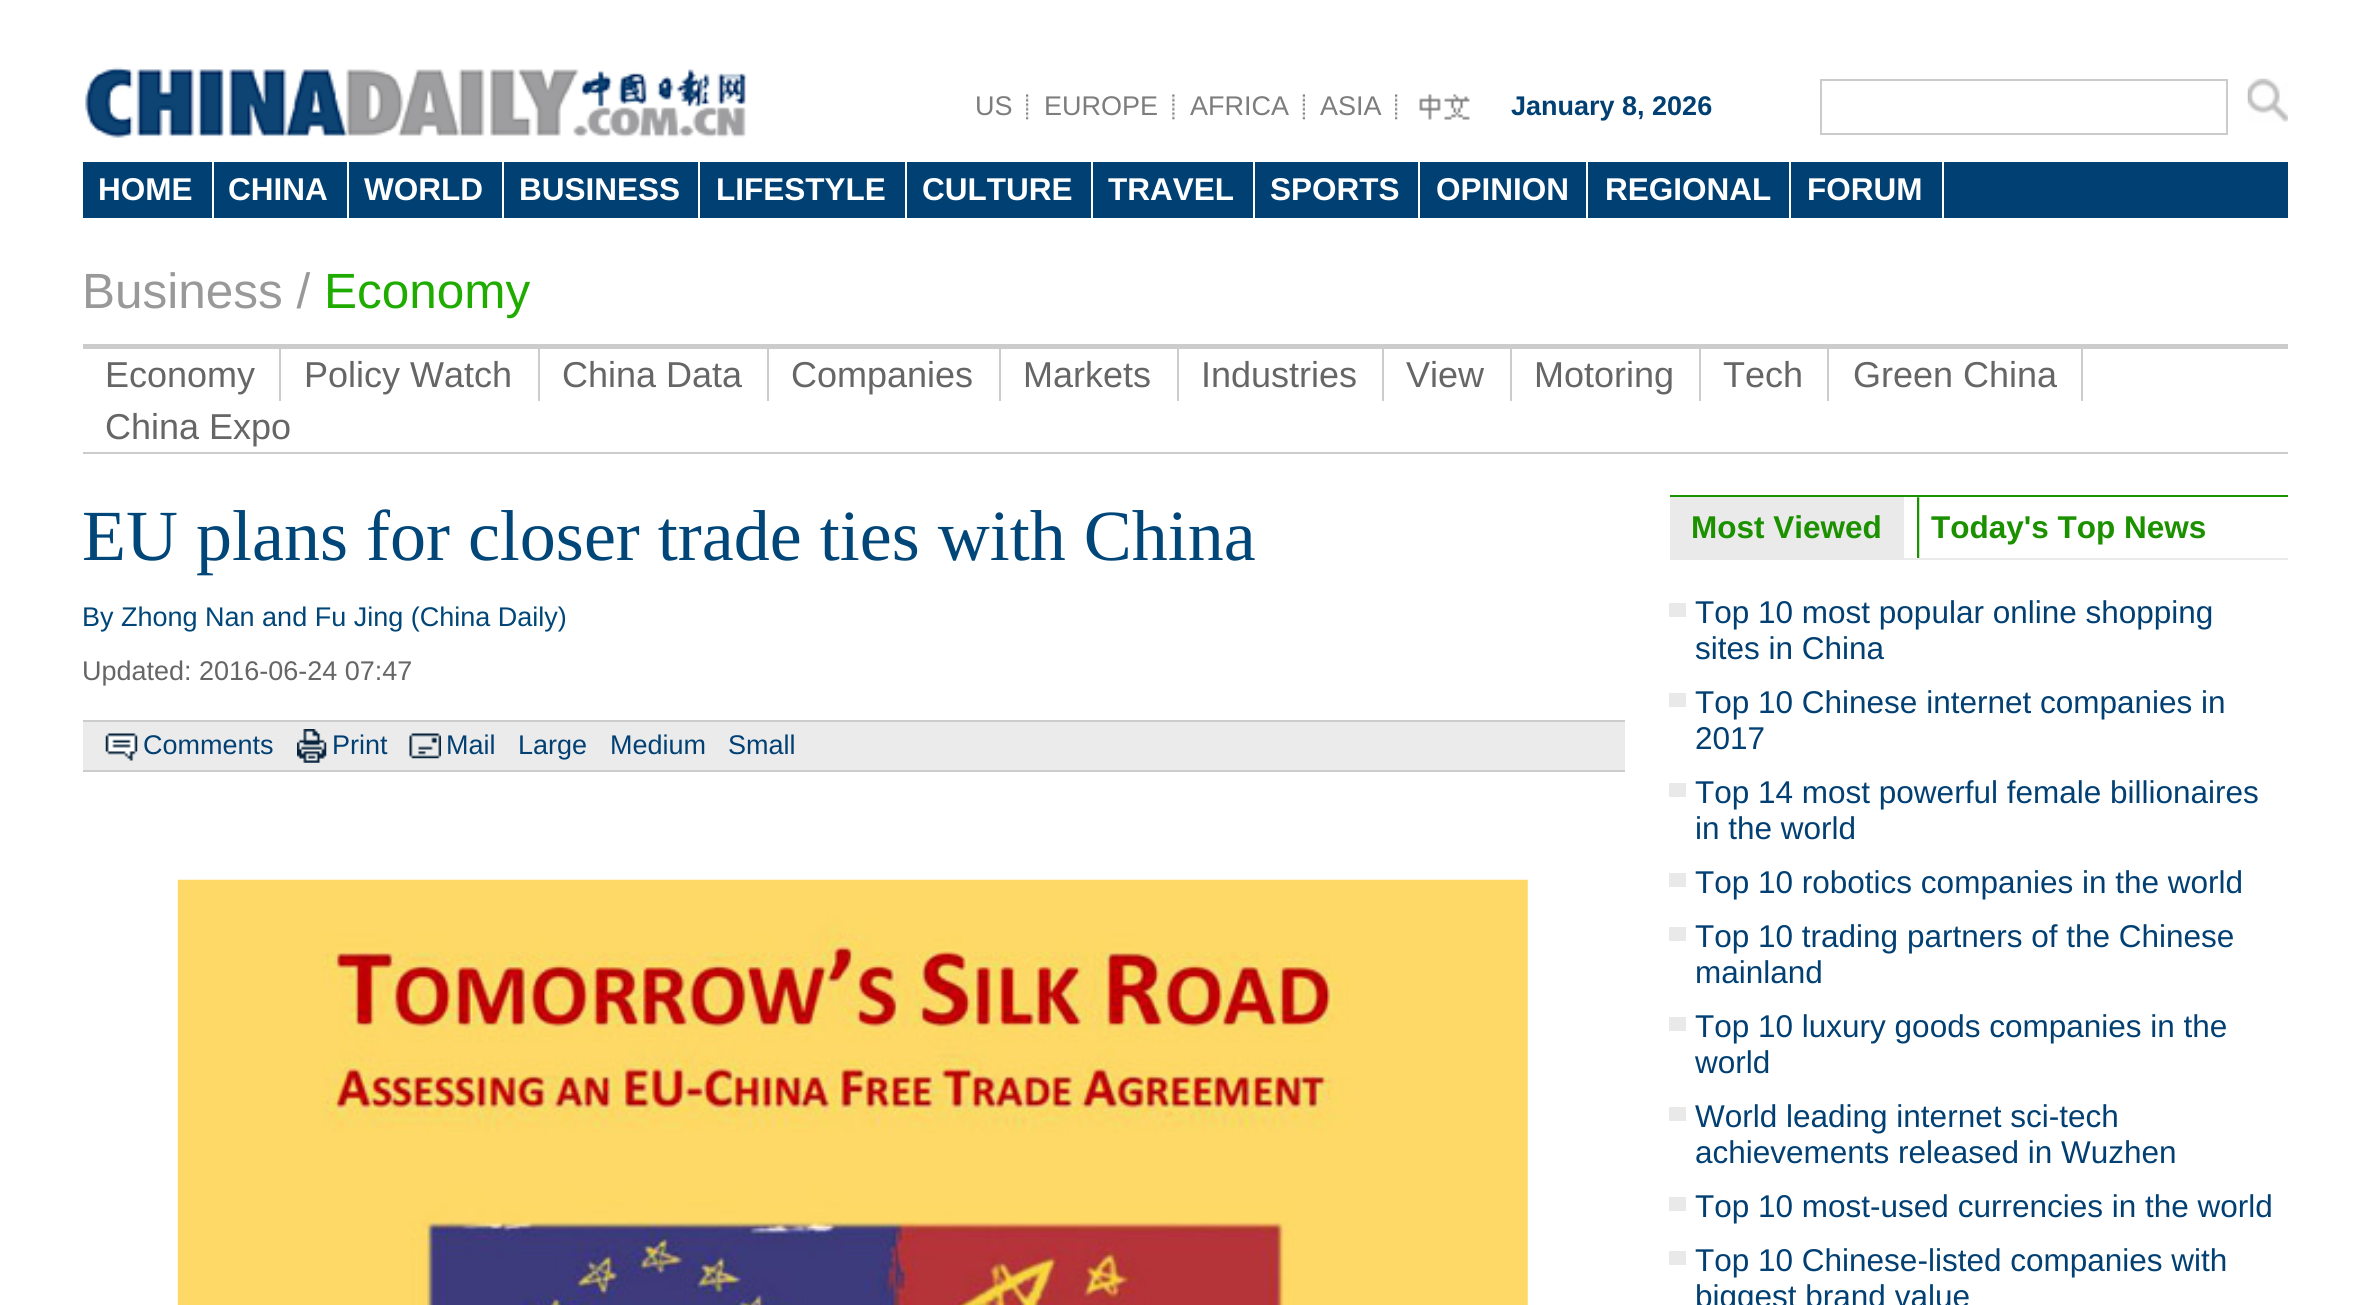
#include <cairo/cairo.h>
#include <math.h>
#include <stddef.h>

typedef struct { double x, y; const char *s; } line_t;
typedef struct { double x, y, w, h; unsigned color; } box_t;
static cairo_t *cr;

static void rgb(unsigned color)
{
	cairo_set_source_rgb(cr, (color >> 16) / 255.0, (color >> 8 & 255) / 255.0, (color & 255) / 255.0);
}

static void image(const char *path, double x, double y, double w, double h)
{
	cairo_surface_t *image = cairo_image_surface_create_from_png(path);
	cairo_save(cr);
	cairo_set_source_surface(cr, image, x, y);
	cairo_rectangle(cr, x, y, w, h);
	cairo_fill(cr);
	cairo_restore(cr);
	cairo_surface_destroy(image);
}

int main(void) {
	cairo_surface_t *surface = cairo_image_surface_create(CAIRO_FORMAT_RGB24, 2369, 1305);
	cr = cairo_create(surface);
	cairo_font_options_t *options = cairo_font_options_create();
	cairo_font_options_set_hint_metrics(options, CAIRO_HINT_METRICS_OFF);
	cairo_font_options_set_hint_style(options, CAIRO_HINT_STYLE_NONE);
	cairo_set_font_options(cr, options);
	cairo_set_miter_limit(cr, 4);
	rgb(0xffffff);
	cairo_paint(cr);
	image("img/1.png", 85, 67, 663, 71);
	image("img/2.png", 1026, 94, 3, 26);
	image("img/3.png", 1172, 94, 3, 26);
	image("img/4.png", 1302, 94, 3, 26);
	image("img/2.png", 1395, 94, 3, 26);
	image("img/5.png", 1419, 94, 51, 26);
	cairo_rectangle(cr, 1821, 80, 406, 54);
	rgb(0xcbcbcb);
	cairo_stroke(cr);
	image("img/6.png", 2247, 78, 41, 44);
	{
		static const box_t items[] = {
			{83, 162, 2205, 56, 0x014073},
			{212, 162, 2, 56, 0xffffff},
			{347, 162, 2, 56, 0xffffff},
			{502, 162, 2, 56, 0xffffff},
			{698, 162, 2, 56, 0xffffff},
			{905, 162, 2, 56, 0xffffff},
			{1091, 162, 2, 56, 0xffffff},
			{1253, 162, 2, 56, 0xffffff},
			{1418, 162, 2, 56, 0xffffff},
			{1586, 162, 2, 56, 0xffffff},
			{1789, 162, 2, 56, 0xffffff},
			{1942, 162, 2, 56, 0xffffff},
			{83, 344, 2205, 5, 0xcccccc},
			{83, 452, 2205, 2, 0xcccccc},
			{279, 349, 2, 52, 0xcccccc},
			{538, 349, 2, 52, 0xcccccc},
			{767, 349, 2, 52, 0xcccccc},
			{999, 349, 2, 52, 0xcccccc},
			{1177, 349, 2, 52, 0xcccccc},
			{1382, 349, 2, 52, 0xcccccc},
			{1510, 349, 2, 52, 0xcccccc},
			{1699, 349, 2, 52, 0xcccccc},
			{1827, 349, 2, 52, 0xcccccc},
			{2081, 349, 2, 52, 0xcccccc},
			{83, 722, 1542, 48, 0xebebeb},
			{83, 720, 1542, 2, 0xcccccc},
			{83, 770, 1542, 2, 0xcccccc},
		};
		for (size_t i = 0; i < sizeof items / sizeof *items; i++) {
			rgb(items[i].color);
			cairo_rectangle(cr, items[i].x, items[i].y, items[i].w, items[i].h);
			cairo_fill(cr);
		}
	}
	image("img/7.png", 105, 733, 33, 28);
	image("img/8.png", 297, 729, 30, 34);
	image("img/9.png", 409, 733, 32, 26);
	image("img/10.png", 177, 879, 1351, 426);
	image("img/11.png", 1917, 497, 3, 61);
	{
		static const box_t items[] = {
			{1670, 495, 618, 2, 0x1a9200},
			{1670, 558, 618, 2, 0xeaeaea},
			{1670, 497, 234, 61, 0xeaeaea},
			{1669, 603, 17, 14, 0xe9e9e9},
			{1669, 693, 17, 14, 0xe9e9e9},
			{1669, 783, 17, 14, 0xe9e9e9},
			{1669, 873, 17, 14, 0xe9e9e9},
			{1669, 927, 17, 14, 0xe9e9e9},
			{1669, 1017, 17, 14, 0xe9e9e9},
			{1669, 1107, 17, 14, 0xe9e9e9},
			{1669, 1197, 17, 14, 0xe9e9e9},
			{1669, 1251, 17, 14, 0xe9e9e9},
		};
		for (size_t i = 0; i < sizeof items / sizeof *items; i++) {
			rgb(items[i].color);
			cairo_rectangle(cr, items[i].x, items[i].y, items[i].w, items[i].h);
			cairo_fill(cr);
		}
	}
	cairo_select_font_face(cr, "Liberation Sans", CAIRO_FONT_SLANT_NORMAL, CAIRO_FONT_WEIGHT_NORMAL);
	cairo_set_font_size(cr, 27);
	rgb(0x7d7d7d);
	{
		static const line_t items[] = {
			{975, 115, "US"},
			{1044, 115, "EUROPE"},
			{1190, 115, "AFRICA"},
			{1320, 115, "ASIA"},
		};
		for (size_t i = 0; i < sizeof items / sizeof *items; i++) {
			cairo_move_to(cr, items[i].x, items[i].y);
			cairo_show_text(cr, items[i].s);
		}
	}
	cairo_select_font_face(cr, "Liberation Sans", CAIRO_FONT_SLANT_NORMAL, CAIRO_FONT_WEIGHT_BOLD);
	rgb(0x024073);
	cairo_move_to(cr, 1511, 115);
	cairo_show_text(cr, "January 8, 2026");
	cairo_set_font_size(cr, 31.5);
	rgb(0xffffff);
	{
		static const line_t items[] = {
			{98, 200, "HOME"},
			{228, 200, "CHINA"},
			{364, 200, "WORLD"},
			{519, 200, "BUSINESS"},
			{716, 200, "LIFESTYLE"},
			{922, 200, "CULTURE"},
			{1108, 200, "TRAVEL"},
			{1270, 200, "SPORTS"},
			{1436, 200, "OPINION"},
			{1605, 200, "REGIONAL"},
			{1807, 200, "FORUM"},
		};
		for (size_t i = 0; i < sizeof items / sizeof *items; i++) {
			cairo_move_to(cr, items[i].x, items[i].y);
			cairo_show_text(cr, items[i].s);
		}
	}
	cairo_select_font_face(cr, "Liberation Sans", CAIRO_FONT_SLANT_NORMAL, CAIRO_FONT_WEIGHT_NORMAL);
	cairo_set_font_size(cr, 49.5);
	rgb(0x999999);
	cairo_move_to(cr, 82, 308);
	cairo_show_text(cr, "Business /");
	rgb(0x1fab00);
	cairo_move_to(cr, 324, 308);
	cairo_show_text(cr, "Economy");
	cairo_set_font_size(cr, 36);
	rgb(0x666666);
	{
		static const line_t items[] = {
			{105, 387, "Economy"},
			{304, 387, "Policy Watch"},
			{562, 387, "China Data"},
			{791, 387, "Companies"},
			{1023, 387, "Markets"},
			{1201, 387, "Industries"},
			{1406, 387, "View"},
			{1534, 387, "Motoring"},
			{1723, 387, "Tech"},
			{1853, 387, "Green China"},
			{105, 439, "China Expo"},
		};
		for (size_t i = 0; i < sizeof items / sizeof *items; i++) {
			cairo_move_to(cr, items[i].x, items[i].y);
			cairo_show_text(cr, items[i].s);
		}
	}
	cairo_select_font_face(cr, "Liberation Serif", CAIRO_FONT_SLANT_NORMAL, CAIRO_FONT_WEIGHT_NORMAL);
	cairo_set_font_size(cr, 72);
	rgb(0x004678);
	cairo_move_to(cr, 82, 560);
	cairo_show_text(cr, "EU plans for closer trade ties with China");
	cairo_select_font_face(cr, "Liberation Sans", CAIRO_FONT_SLANT_NORMAL, CAIRO_FONT_WEIGHT_NORMAL);
	cairo_set_font_size(cr, 27);
	cairo_move_to(cr, 82, 626);
	cairo_show_text(cr, "By Zhong Nan and Fu Jing (China Daily)");
	rgb(0x666666);
	cairo_move_to(cr, 82, 680);
	cairo_show_text(cr, "Updated: 2016-06-24 07:47");
	rgb(0x024073);
	{
		static const line_t items[] = {
			{143, 754, "Comments"},
			{332, 754, "Print"},
			{446, 754, "Mail"},
			{518, 754, "Large"},
			{610, 754, "Medium"},
			{728, 754, "Small"},
		};
		for (size_t i = 0; i < sizeof items / sizeof *items; i++) {
			cairo_move_to(cr, items[i].x, items[i].y);
			cairo_show_text(cr, items[i].s);
		}
	}
	cairo_select_font_face(cr, "Liberation Sans", CAIRO_FONT_SLANT_NORMAL, CAIRO_FONT_WEIGHT_BOLD);
	cairo_set_font_size(cr, 31.5);
	rgb(0x1b9100);
	cairo_move_to(cr, 1691, 538);
	cairo_show_text(cr, "Most Viewed");
	cairo_move_to(cr, 1931, 538);
	cairo_show_text(cr, "Today's Top News");
	cairo_select_font_face(cr, "Liberation Sans", CAIRO_FONT_SLANT_NORMAL, CAIRO_FONT_WEIGHT_NORMAL);
	rgb(0x024073);
	{
		static const line_t items[] = {
			{1695, 623, "Top 10 most popular online shopping"},
			{1695, 659, "sites in China"},
			{1695, 713, "Top 10 Chinese internet companies in"},
			{1695, 749, "2017"},
			{1695, 803, "Top 14 most powerful female billionaires"},
			{1695, 839, "in the world"},
			{1695, 893, "Top 10 robotics companies in the world"},
			{1695, 947, "Top 10 trading partners of the Chinese"},
			{1695, 983, "mainland"},
			{1695, 1037, "Top 10 luxury goods companies in the"},
			{1695, 1073, "world"},
			{1695, 1127, "World leading internet sci-tech"},
			{1695, 1163, "achievements released in Wuzhen"},
			{1695, 1217, "Top 10 most-used currencies in the world"},
			{1695, 1271, "Top 10 Chinese-listed companies with"},
			{1695, 1307, "biggest brand value"},
		};
		for (size_t i = 0; i < sizeof items / sizeof *items; i++) {
			cairo_move_to(cr, items[i].x, items[i].y);
			cairo_show_text(cr, items[i].s);
		}
	}
	cairo_surface_write_to_png(surface, "page.png");
	cairo_font_options_destroy(options);
	cairo_destroy(cr);
	cairo_surface_destroy(surface);
	return 0;
}
